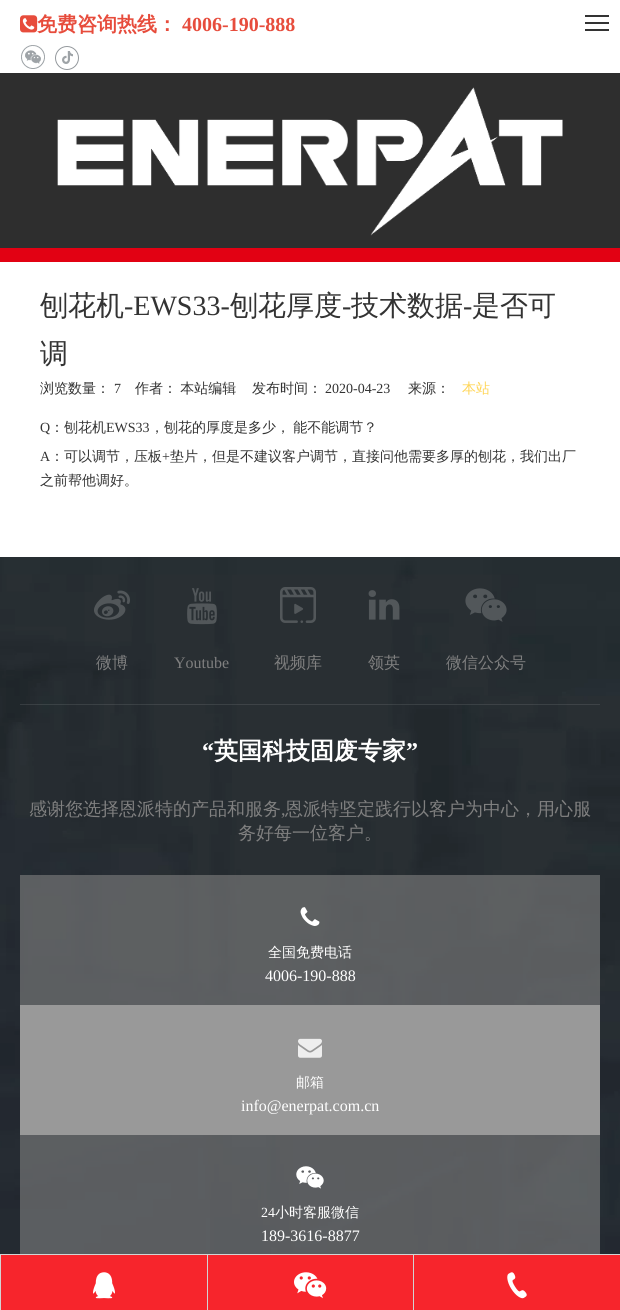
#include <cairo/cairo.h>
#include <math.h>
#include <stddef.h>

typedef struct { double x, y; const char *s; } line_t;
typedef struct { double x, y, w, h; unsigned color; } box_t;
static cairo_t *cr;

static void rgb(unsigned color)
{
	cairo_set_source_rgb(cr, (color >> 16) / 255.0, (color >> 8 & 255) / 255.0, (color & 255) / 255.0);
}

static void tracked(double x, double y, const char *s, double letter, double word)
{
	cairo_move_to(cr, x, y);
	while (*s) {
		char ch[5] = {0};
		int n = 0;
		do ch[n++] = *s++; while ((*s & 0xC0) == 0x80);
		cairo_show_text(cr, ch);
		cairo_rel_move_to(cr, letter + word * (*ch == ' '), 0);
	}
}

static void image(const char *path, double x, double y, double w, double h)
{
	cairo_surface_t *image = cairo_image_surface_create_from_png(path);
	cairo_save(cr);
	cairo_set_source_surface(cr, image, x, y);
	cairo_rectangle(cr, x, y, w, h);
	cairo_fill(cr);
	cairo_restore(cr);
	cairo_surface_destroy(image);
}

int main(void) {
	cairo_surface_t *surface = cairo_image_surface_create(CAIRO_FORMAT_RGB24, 620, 1310);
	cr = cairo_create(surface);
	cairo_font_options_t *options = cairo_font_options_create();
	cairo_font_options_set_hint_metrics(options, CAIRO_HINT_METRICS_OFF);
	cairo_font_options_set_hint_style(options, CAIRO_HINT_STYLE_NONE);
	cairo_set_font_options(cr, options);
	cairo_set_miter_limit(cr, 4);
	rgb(0xffffff);
	cairo_paint(cr);
	image("img/1.png", 20, 15, 18, 18);
	image("img/2.png", 21, 45, 24, 24);
	image("img/3.png", 55, 46, 24, 24);
	{
		static const box_t items[] = {
			{0, 73, 620, 175, 0x2e2e2e},
			{0, 248, 620, 14, 0xe20113},
			{585, 15, 24, 2, 0x333333},
			{585, 22, 24, 2, 0x333333},
			{585, 29, 24, 2, 0x333333},
		};
		for (size_t i = 0; i < sizeof items / sizeof *items; i++) {
			rgb(items[i].color);
			cairo_rectangle(cr, items[i].x, items[i].y, items[i].w, items[i].h);
			cairo_fill(cr);
		}
	}
	image("img/4.png", 57, 87, 506, 149);
	image("img/5.png", 0, 557, 620, 697);
	cairo_set_source_rgba(cr, 1, 1, 1, 0.1);
	cairo_rectangle(cr, 20, 704, 580, 1);
	cairo_fill(cr);
	image("img/6.png", 94, 590, 36, 30);
	image("img/7.png", 187, 588, 30, 37);
	image("img/8.png", 280, 587, 36, 36);
	image("img/9.png", 368, 590, 32, 30);
	image("img/10.png", 465, 588, 42, 34);
	cairo_set_source_rgba(cr, 0.502, 0.502, 0.502, 0.6);
	cairo_rectangle(cr, 20, 875, 580, 130);
	cairo_fill(cr);
	image("img/11.png", 300, 907, 20, 19);
	rgb(0x999999);
	cairo_rectangle(cr, 20, 1005, 580, 130);
	cairo_fill(cr);
	image("img/12.png", 298, 1038, 24, 20);
	cairo_set_source_rgba(cr, 0.502, 0.502, 0.502, 0.6);
	cairo_rectangle(cr, 20, 1135, 580, 119);
	cairo_fill(cr);
	image("img/13.png", 296, 1166, 28, 23);
	{
		static const box_t items[] = {
			{0, 1254, 620, 1, 0xd3d3d3},
			{0, 1255, 1, 55, 0xd3d3d3},
			{1, 1255, 206, 55, 0xf7252c},
		};
		for (size_t i = 0; i < sizeof items / sizeof *items; i++) {
			rgb(items[i].color);
			cairo_rectangle(cr, items[i].x, items[i].y, items[i].w, items[i].h);
			cairo_fill(cr);
		}
	}
	image("img/14.png", 93, 1272, 22, 27);
	rgb(0xd3d3d3);
	cairo_rectangle(cr, 207, 1255, 1, 55);
	cairo_fill(cr);
	rgb(0xf7252c);
	cairo_rectangle(cr, 208, 1255, 205, 55);
	cairo_fill(cr);
	image("img/15.png", 294, 1272, 33, 27);
	rgb(0xd3d3d3);
	cairo_rectangle(cr, 413, 1255, 1, 55);
	cairo_fill(cr);
	rgb(0xf7252c);
	cairo_rectangle(cr, 414, 1255, 206, 55);
	cairo_fill(cr);
	image("img/16.png", 507, 1272, 20, 27);
	cairo_select_font_face(cr, "WenQuanYi Zen Hei", CAIRO_FONT_SLANT_NORMAL, CAIRO_FONT_WEIGHT_BOLD);
	cairo_set_font_size(cr, 20);
	rgb(0xe74c3c);
	cairo_move_to(cr, 37, 31);
	cairo_show_text(cr, "免费咨询热线：");
	cairo_select_font_face(cr, "Liberation Serif", CAIRO_FONT_SLANT_NORMAL, CAIRO_FONT_WEIGHT_BOLD);
	cairo_move_to(cr, 182, 31);
	cairo_show_text(cr, "4006-190-888");
	cairo_select_font_face(cr, "WenQuanYi Zen Hei Medium", CAIRO_FONT_SLANT_NORMAL, CAIRO_FONT_WEIGHT_NORMAL);
	cairo_set_font_size(cr, 28);
	rgb(0x333333);
	cairo_move_to(cr, 40, 315);
	cairo_show_text(cr, "刨花机");
	cairo_select_font_face(cr, "Liberation Serif", CAIRO_FONT_SLANT_NORMAL, CAIRO_FONT_WEIGHT_NORMAL);
	cairo_move_to(cr, 124, 315);
	cairo_show_text(cr, "-EWS33-");
	cairo_select_font_face(cr, "WenQuanYi Zen Hei Medium", CAIRO_FONT_SLANT_NORMAL, CAIRO_FONT_WEIGHT_NORMAL);
	cairo_move_to(cr, 230, 315);
	cairo_show_text(cr, "刨花厚度");
	cairo_select_font_face(cr, "Liberation Serif", CAIRO_FONT_SLANT_NORMAL, CAIRO_FONT_WEIGHT_NORMAL);
	cairo_move_to(cr, 342, 315);
	cairo_show_text(cr, "-");
	cairo_select_font_face(cr, "WenQuanYi Zen Hei Medium", CAIRO_FONT_SLANT_NORMAL, CAIRO_FONT_WEIGHT_NORMAL);
	cairo_move_to(cr, 351, 315);
	cairo_show_text(cr, "技术数据");
	cairo_select_font_face(cr, "Liberation Serif", CAIRO_FONT_SLANT_NORMAL, CAIRO_FONT_WEIGHT_NORMAL);
	cairo_move_to(cr, 463, 315);
	cairo_show_text(cr, "-");
	cairo_select_font_face(cr, "WenQuanYi Zen Hei Medium", CAIRO_FONT_SLANT_NORMAL, CAIRO_FONT_WEIGHT_NORMAL);
	cairo_move_to(cr, 472, 315);
	cairo_show_text(cr, "是否可");
	cairo_move_to(cr, 40, 363);
	cairo_show_text(cr, "调");
	cairo_set_font_size(cr, 14);
	cairo_move_to(cr, 40, 393);
	cairo_show_text(cr, "浏览数量：");
	cairo_select_font_face(cr, "Liberation Serif", CAIRO_FONT_SLANT_NORMAL, CAIRO_FONT_WEIGHT_NORMAL);
	cairo_move_to(cr, 114, 393);
	cairo_show_text(cr, "7");
	cairo_select_font_face(cr, "WenQuanYi Zen Hei Medium", CAIRO_FONT_SLANT_NORMAL, CAIRO_FONT_WEIGHT_NORMAL);
	tracked(135, 393, "作者： 本站编辑", 0, -1);
	cairo_move_to(cr, 252, 393);
	cairo_show_text(cr, "发布时间：");
	cairo_select_font_face(cr, "Liberation Serif", CAIRO_FONT_SLANT_NORMAL, CAIRO_FONT_WEIGHT_NORMAL);
	cairo_move_to(cr, 325, 393);
	cairo_show_text(cr, "2020-04-23");
	cairo_select_font_face(cr, "WenQuanYi Zen Hei Medium", CAIRO_FONT_SLANT_NORMAL, CAIRO_FONT_WEIGHT_NORMAL);
	cairo_move_to(cr, 408, 393);
	cairo_show_text(cr, "来源：");
	rgb(0xffd556);
	cairo_move_to(cr, 462, 393);
	cairo_show_text(cr, "本站");
	cairo_select_font_face(cr, "Liberation Serif", CAIRO_FONT_SLANT_NORMAL, CAIRO_FONT_WEIGHT_NORMAL);
	rgb(0x333333);
	cairo_move_to(cr, 40, 432);
	cairo_show_text(cr, "Q");
	cairo_select_font_face(cr, "WenQuanYi Zen Hei Medium", CAIRO_FONT_SLANT_NORMAL, CAIRO_FONT_WEIGHT_NORMAL);
	cairo_move_to(cr, 50, 432);
	cairo_show_text(cr, "：刨花机");
	cairo_select_font_face(cr, "Liberation Serif", CAIRO_FONT_SLANT_NORMAL, CAIRO_FONT_WEIGHT_NORMAL);
	cairo_move_to(cr, 106, 432);
	cairo_show_text(cr, "EWS33");
	cairo_select_font_face(cr, "WenQuanYi Zen Hei Medium", CAIRO_FONT_SLANT_NORMAL, CAIRO_FONT_WEIGHT_NORMAL);
	tracked(150, 432, "，刨花的厚度是多少， 能不能调节？", 0, -1);
	cairo_select_font_face(cr, "Liberation Serif", CAIRO_FONT_SLANT_NORMAL, CAIRO_FONT_WEIGHT_NORMAL);
	cairo_move_to(cr, 40, 461);
	cairo_show_text(cr, "A");
	cairo_select_font_face(cr, "WenQuanYi Zen Hei Medium", CAIRO_FONT_SLANT_NORMAL, CAIRO_FONT_WEIGHT_NORMAL);
	cairo_move_to(cr, 50, 461);
	cairo_show_text(cr, "：可以调节，压板");
	cairo_select_font_face(cr, "Liberation Serif", CAIRO_FONT_SLANT_NORMAL, CAIRO_FONT_WEIGHT_NORMAL);
	cairo_move_to(cr, 162, 461);
	cairo_show_text(cr, "+");
	cairo_select_font_face(cr, "WenQuanYi Zen Hei Medium", CAIRO_FONT_SLANT_NORMAL, CAIRO_FONT_WEIGHT_NORMAL);
	cairo_move_to(cr, 170, 461);
	cairo_show_text(cr, "垫片，但是不建议客户调节，直接问他需要多厚的刨花，我们出厂");
	cairo_move_to(cr, 40, 485);
	cairo_show_text(cr, "之前帮他调好。");
	cairo_set_font_size(cr, 16);
	rgb(0x808080);
	cairo_move_to(cr, 96, 668);
	cairo_show_text(cr, "微博");
	cairo_select_font_face(cr, "Liberation Serif", CAIRO_FONT_SLANT_NORMAL, CAIRO_FONT_WEIGHT_NORMAL);
	cairo_move_to(cr, 174, 668);
	cairo_show_text(cr, "Youtube");
	cairo_select_font_face(cr, "WenQuanYi Zen Hei Medium", CAIRO_FONT_SLANT_NORMAL, CAIRO_FONT_WEIGHT_NORMAL);
	{
		static const line_t items[] = {
			{274, 668, "视频库"},
			{368, 668, "领英"},
			{446, 668, "微信公众号"},
		};
		for (size_t i = 0; i < sizeof items / sizeof *items; i++) {
			cairo_move_to(cr, items[i].x, items[i].y);
			cairo_show_text(cr, items[i].s);
		}
	}
	cairo_select_font_face(cr, "Liberation Serif", CAIRO_FONT_SLANT_NORMAL, CAIRO_FONT_WEIGHT_BOLD);
	cairo_set_font_size(cr, 24);
	rgb(0xffffff);
	cairo_move_to(cr, 202, 759);
	cairo_show_text(cr, "“");
	cairo_select_font_face(cr, "WenQuanYi Zen Hei", CAIRO_FONT_SLANT_NORMAL, CAIRO_FONT_WEIGHT_BOLD);
	cairo_move_to(cr, 214, 759);
	cairo_show_text(cr, "英国科技固废专家");
	cairo_select_font_face(cr, "Liberation Serif", CAIRO_FONT_SLANT_NORMAL, CAIRO_FONT_WEIGHT_BOLD);
	cairo_move_to(cr, 406, 759);
	cairo_show_text(cr, "”");
	cairo_select_font_face(cr, "WenQuanYi Zen Hei Medium", CAIRO_FONT_SLANT_NORMAL, CAIRO_FONT_WEIGHT_NORMAL);
	cairo_set_font_size(cr, 18);
	rgb(0x808080);
	cairo_move_to(cr, 29, 815);
	cairo_show_text(cr, "感谢您选择恩派特的产品和服务");
	cairo_select_font_face(cr, "Liberation Serif", CAIRO_FONT_SLANT_NORMAL, CAIRO_FONT_WEIGHT_NORMAL);
	cairo_move_to(cr, 281, 815);
	cairo_show_text(cr, ",");
	cairo_select_font_face(cr, "WenQuanYi Zen Hei Medium", CAIRO_FONT_SLANT_NORMAL, CAIRO_FONT_WEIGHT_NORMAL);
	cairo_move_to(cr, 285, 815);
	cairo_show_text(cr, "恩派特坚定践行以客户为中心，用心服");
	cairo_move_to(cr, 238, 839);
	cairo_show_text(cr, "务好每一位客户。");
	cairo_set_font_size(cr, 14);
	rgb(0xffffff);
	cairo_move_to(cr, 268, 957);
	cairo_show_text(cr, "全国免费电话");
	cairo_select_font_face(cr, "Liberation Serif", CAIRO_FONT_SLANT_NORMAL, CAIRO_FONT_WEIGHT_NORMAL);
	cairo_set_font_size(cr, 16);
	cairo_move_to(cr, 265, 981);
	cairo_show_text(cr, "4006-190-888");
	cairo_select_font_face(cr, "WenQuanYi Zen Hei Medium", CAIRO_FONT_SLANT_NORMAL, CAIRO_FONT_WEIGHT_NORMAL);
	cairo_set_font_size(cr, 14);
	cairo_move_to(cr, 296, 1087);
	cairo_show_text(cr, "邮箱");
	cairo_select_font_face(cr, "Liberation Serif", CAIRO_FONT_SLANT_NORMAL, CAIRO_FONT_WEIGHT_NORMAL);
	cairo_set_font_size(cr, 16);
	cairo_move_to(cr, 241, 1111);
	cairo_show_text(cr, "info@enerpat.com.cn");
	cairo_set_font_size(cr, 14);
	cairo_move_to(cr, 261, 1217);
	cairo_show_text(cr, "24");
	cairo_select_font_face(cr, "WenQuanYi Zen Hei Medium", CAIRO_FONT_SLANT_NORMAL, CAIRO_FONT_WEIGHT_NORMAL);
	cairo_move_to(cr, 275, 1217);
	cairo_show_text(cr, "小时客服微信");
	cairo_select_font_face(cr, "Liberation Serif", CAIRO_FONT_SLANT_NORMAL, CAIRO_FONT_WEIGHT_NORMAL);
	cairo_set_font_size(cr, 16);
	cairo_move_to(cr, 261, 1241);
	cairo_show_text(cr, "189-3616-8877");
	cairo_surface_write_to_png(surface, "page.png");
	cairo_font_options_destroy(options);
	cairo_destroy(cr);
	cairo_surface_destroy(surface);
	return 0;
}
